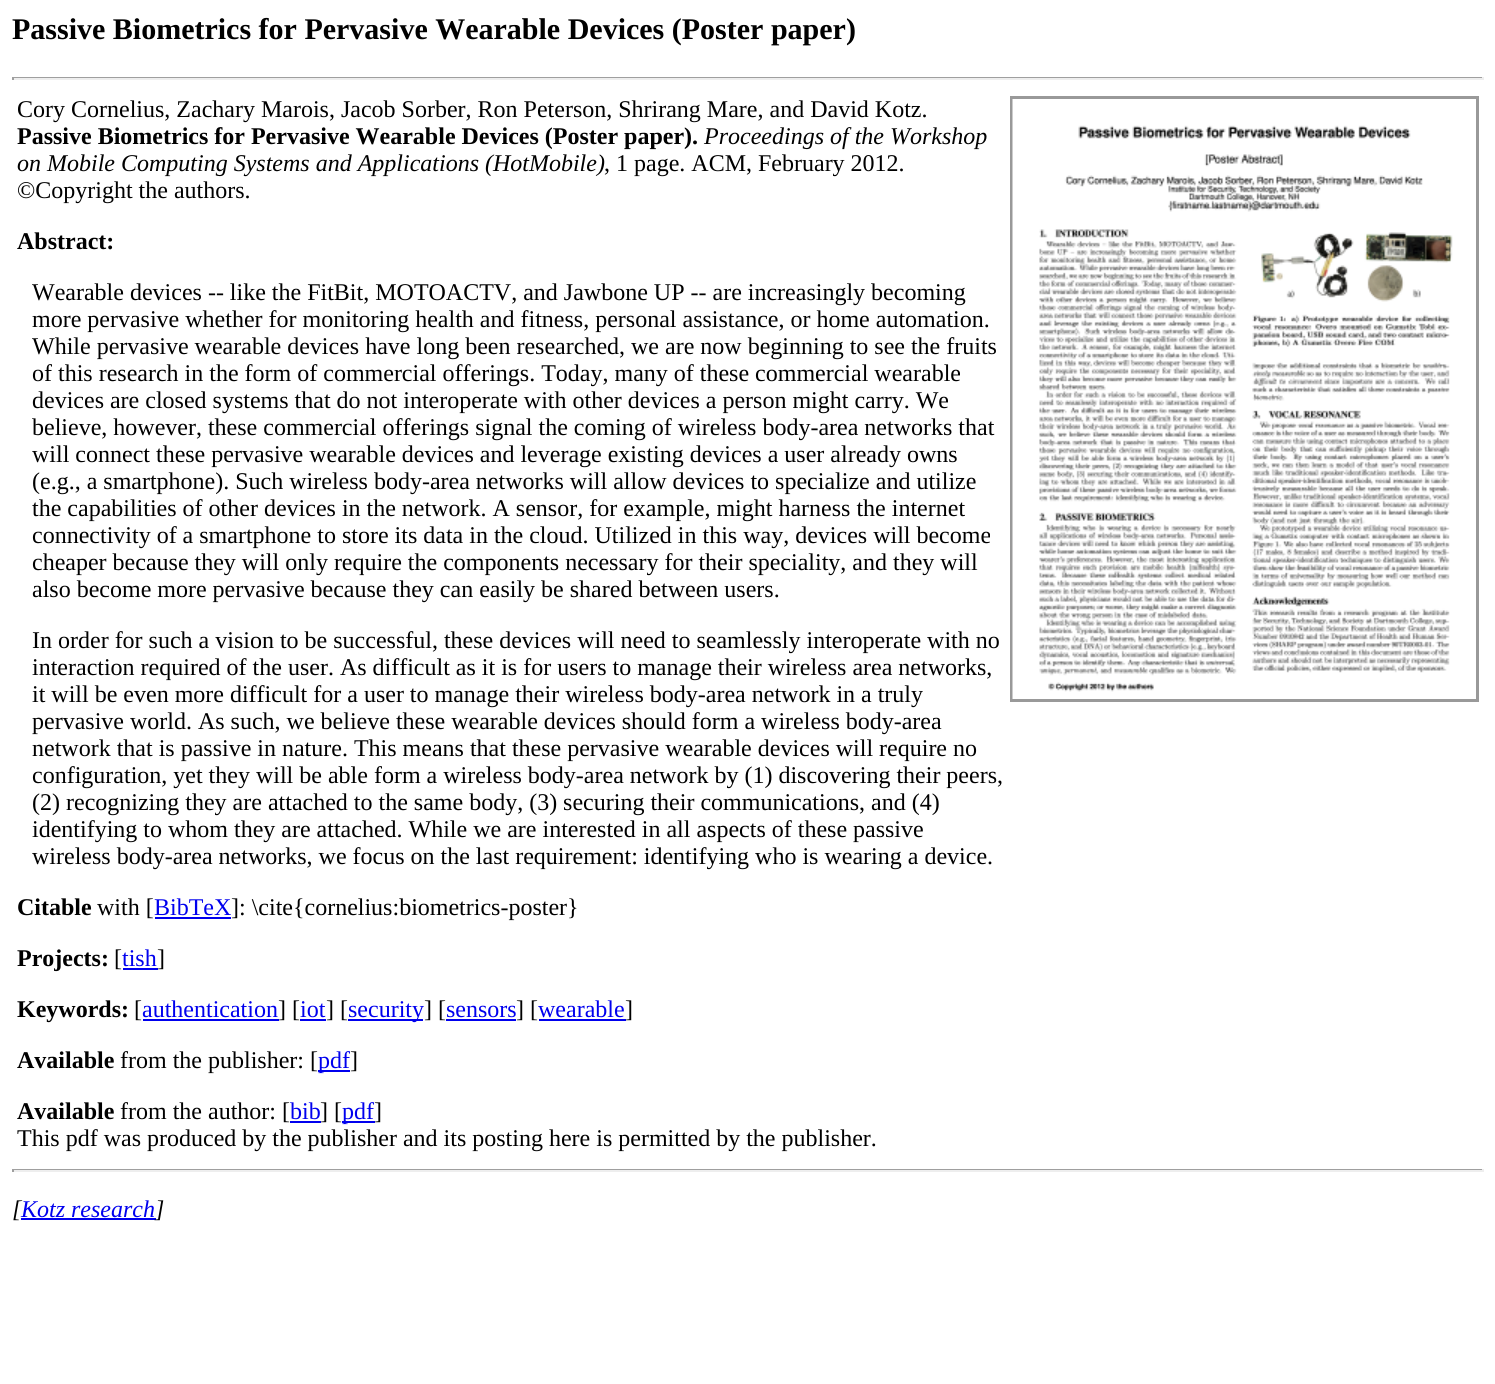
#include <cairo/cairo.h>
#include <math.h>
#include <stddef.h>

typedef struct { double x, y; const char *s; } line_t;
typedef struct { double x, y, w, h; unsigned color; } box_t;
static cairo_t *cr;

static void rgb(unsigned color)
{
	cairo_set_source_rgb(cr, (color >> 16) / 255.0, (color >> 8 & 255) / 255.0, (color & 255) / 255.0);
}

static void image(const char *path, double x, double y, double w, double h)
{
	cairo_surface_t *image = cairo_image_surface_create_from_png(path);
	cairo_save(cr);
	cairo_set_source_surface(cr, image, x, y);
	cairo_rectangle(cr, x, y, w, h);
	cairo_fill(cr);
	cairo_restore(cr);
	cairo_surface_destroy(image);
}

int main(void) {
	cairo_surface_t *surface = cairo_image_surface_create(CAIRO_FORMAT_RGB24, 1495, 1384);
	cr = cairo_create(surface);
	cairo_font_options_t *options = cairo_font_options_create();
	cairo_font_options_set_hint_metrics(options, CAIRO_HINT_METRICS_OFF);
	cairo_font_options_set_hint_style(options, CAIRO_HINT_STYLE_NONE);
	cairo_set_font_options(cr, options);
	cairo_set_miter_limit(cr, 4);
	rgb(0xffffff);
	cairo_paint(cr);
	{
		static const box_t items[] = {
			{12, 77, 1472, 1, 0x9f9f9f},
			{1482, 77, 2, 3, 0xeeeeee},
			{12, 78, 1472, 2, 0xeeeeee},
			{12, 77, 2, 3, 0x9f9f9f},
			{155, 917, 76, 2, 0x0000ee},
			{123, 968, 35, 2, 0x0000ee},
			{143, 1019, 136, 2, 0x0000ee},
			{300, 1019, 26, 2, 0x0000ee},
			{348, 1019, 75, 2, 0x0000ee},
			{446, 1019, 70, 2, 0x0000ee},
			{539, 1019, 87, 2, 0x0000ee},
			{318, 1070, 32, 2, 0x0000ee},
			{290, 1121, 31, 2, 0x0000ee},
			{342, 1121, 33, 2, 0x0000ee},
		};
		for (size_t i = 0; i < sizeof items / sizeof *items; i++) {
			rgb(items[i].color);
			cairo_rectangle(cr, items[i].x, items[i].y, items[i].w, items[i].h);
			cairo_fill(cr);
		}
	}
	cairo_rectangle(cr, 1011.5, 97.5, 466, 603);
	rgb(0x999999);
	cairo_set_line_width(cr, 3);
	cairo_stroke(cr);
	image("img/1.png", 1012, 99, 441, 600);
	{
		static const box_t items[] = {
			{12, 1169, 1472, 1, 0x9f9f9f},
			{1482, 1169, 2, 3, 0xeeeeee},
			{12, 1170, 1472, 2, 0xeeeeee},
			{12, 1169, 2, 3, 0x9f9f9f},
		};
		for (size_t i = 0; i < sizeof items / sizeof *items; i++) {
			rgb(items[i].color);
			cairo_rectangle(cr, items[i].x, items[i].y, items[i].w, items[i].h);
			cairo_fill(cr);
		}
	}
	cairo_select_font_face(cr, "Liberation Serif", CAIRO_FONT_SLANT_NORMAL, CAIRO_FONT_WEIGHT_BOLD);
	cairo_set_font_size(cr, 30);
	rgb(0x000000);
	cairo_move_to(cr, 12, 39);
	cairo_show_text(cr, "Passive Biometrics for Pervasive Wearable Devices (Poster paper)");
	cairo_select_font_face(cr, "Liberation Serif", CAIRO_FONT_SLANT_NORMAL, CAIRO_FONT_WEIGHT_NORMAL);
	cairo_set_font_size(cr, 24);
	cairo_move_to(cr, 17, 117);
	cairo_show_text(cr, "Cory Cornelius, Zachary Marois, Jacob Sorber, Ron Peterson, Shrirang Mare, and David Kotz.");
	cairo_select_font_face(cr, "Liberation Serif", CAIRO_FONT_SLANT_NORMAL, CAIRO_FONT_WEIGHT_BOLD);
	cairo_move_to(cr, 17, 144);
	cairo_show_text(cr, "Passive Biometrics for Pervasive Wearable Devices (Poster paper).");
	cairo_select_font_face(cr, "Liberation Serif", CAIRO_FONT_SLANT_ITALIC, CAIRO_FONT_WEIGHT_NORMAL);
	cairo_move_to(cr, 704, 144);
	cairo_show_text(cr, "Proceedings of the Workshop");
	cairo_move_to(cr, 17, 171);
	cairo_show_text(cr, "on Mobile Computing Systems and Applications (HotMobile)");
	cairo_select_font_face(cr, "Liberation Serif", CAIRO_FONT_SLANT_NORMAL, CAIRO_FONT_WEIGHT_NORMAL);
	cairo_move_to(cr, 604, 171);
	cairo_show_text(cr, ", 1 page. ACM, February 2012.");
	cairo_move_to(cr, 17, 198);
	cairo_show_text(cr, "©Copyright the authors.");
	cairo_select_font_face(cr, "Liberation Serif", CAIRO_FONT_SLANT_NORMAL, CAIRO_FONT_WEIGHT_BOLD);
	cairo_move_to(cr, 17, 249);
	cairo_show_text(cr, "Abstract:");
	cairo_select_font_face(cr, "Liberation Serif", CAIRO_FONT_SLANT_NORMAL, CAIRO_FONT_WEIGHT_NORMAL);
	{
		static const line_t items[] = {
			{32, 300, "Wearable devices -- like the FitBit, MOTOACTV, and Jawbone UP -- are increasingly becoming"},
			{32, 327, "more pervasive whether for monitoring health and fitness, personal assistance, or home automation."},
			{32, 354, "While pervasive wearable devices have long been researched, we are now beginning to see the fruits"},
			{32, 381, "of this research in the form of commercial offerings. Today, many of these commercial wearable"},
			{32, 408, "devices are closed systems that do not interoperate with other devices a person might carry. We"},
			{32, 435, "believe, however, these commercial offerings signal the coming of wireless body-area networks that"},
			{32, 462, "will connect these pervasive wearable devices and leverage existing devices a user already owns"},
			{32, 489, "(e.g., a smartphone). Such wireless body-area networks will allow devices to specialize and utilize"},
			{32, 516, "the capabilities of other devices in the network. A sensor, for example, might harness the internet"},
			{32, 543, "connectivity of a smartphone to store its data in the cloud. Utilized in this way, devices will become"},
			{32, 570, "cheaper because they will only require the components necessary for their speciality, and they will"},
			{32, 597, "also become more pervasive because they can easily be shared between users."},
			{32, 648, "In order for such a vision to be successful, these devices will need to seamlessly interoperate with no"},
			{32, 675, "interaction required of the user. As difficult as it is for users to manage their wireless area networks,"},
			{32, 702, "it will be even more difficult for a user to manage their wireless body-area network in a truly"},
			{32, 729, "pervasive world. As such, we believe these wearable devices should form a wireless body-area"},
			{32, 756, "network that is passive in nature. This means that these pervasive wearable devices will require no"},
			{32, 783, "configuration, yet they will be able form a wireless body-area network by (1) discovering their peers,"},
			{32, 810, "(2) recognizing they are attached to the same body, (3) securing their communications, and (4)"},
			{32, 837, "identifying to whom they are attached. While we are interested in all aspects of these passive"},
			{32, 864, "wireless body-area networks, we focus on the last requirement: identifying who is wearing a device."},
		};
		for (size_t i = 0; i < sizeof items / sizeof *items; i++) {
			cairo_move_to(cr, items[i].x, items[i].y);
			cairo_show_text(cr, items[i].s);
		}
	}
	cairo_select_font_face(cr, "Liberation Serif", CAIRO_FONT_SLANT_NORMAL, CAIRO_FONT_WEIGHT_BOLD);
	cairo_move_to(cr, 17, 915);
	cairo_show_text(cr, "Citable");
	cairo_select_font_face(cr, "Liberation Serif", CAIRO_FONT_SLANT_NORMAL, CAIRO_FONT_WEIGHT_NORMAL);
	cairo_move_to(cr, 97, 915);
	cairo_show_text(cr, "with [");
	rgb(0x0000ee);
	cairo_move_to(cr, 154, 915);
	cairo_show_text(cr, "BibTeX");
	rgb(0x000000);
	cairo_move_to(cr, 231, 915);
	cairo_show_text(cr, "]: \\cite{cornelius:biometrics-poster}");
	cairo_select_font_face(cr, "Liberation Serif", CAIRO_FONT_SLANT_NORMAL, CAIRO_FONT_WEIGHT_BOLD);
	cairo_move_to(cr, 17, 966);
	cairo_show_text(cr, "Projects:");
	cairo_select_font_face(cr, "Liberation Serif", CAIRO_FONT_SLANT_NORMAL, CAIRO_FONT_WEIGHT_NORMAL);
	cairo_move_to(cr, 114, 966);
	cairo_show_text(cr, "[");
	rgb(0x0000ee);
	cairo_move_to(cr, 122, 966);
	cairo_show_text(cr, "tish");
	rgb(0x000000);
	cairo_move_to(cr, 157, 966);
	cairo_show_text(cr, "]");
	cairo_select_font_face(cr, "Liberation Serif", CAIRO_FONT_SLANT_NORMAL, CAIRO_FONT_WEIGHT_BOLD);
	cairo_move_to(cr, 17, 1017);
	cairo_show_text(cr, "Keywords:");
	cairo_select_font_face(cr, "Liberation Serif", CAIRO_FONT_SLANT_NORMAL, CAIRO_FONT_WEIGHT_NORMAL);
	cairo_move_to(cr, 134, 1017);
	cairo_show_text(cr, "[");
	rgb(0x0000ee);
	cairo_move_to(cr, 142, 1017);
	cairo_show_text(cr, "authentication");
	rgb(0x000000);
	cairo_move_to(cr, 278, 1017);
	cairo_show_text(cr, "] [");
	rgb(0x0000ee);
	cairo_move_to(cr, 300, 1017);
	cairo_show_text(cr, "iot");
	rgb(0x000000);
	cairo_move_to(cr, 326, 1017);
	cairo_show_text(cr, "] [");
	rgb(0x0000ee);
	cairo_move_to(cr, 348, 1017);
	cairo_show_text(cr, "security");
	rgb(0x000000);
	cairo_move_to(cr, 424, 1017);
	cairo_show_text(cr, "] [");
	rgb(0x0000ee);
	cairo_move_to(cr, 446, 1017);
	cairo_show_text(cr, "sensors");
	rgb(0x000000);
	cairo_move_to(cr, 516, 1017);
	cairo_show_text(cr, "] [");
	rgb(0x0000ee);
	cairo_move_to(cr, 538, 1017);
	cairo_show_text(cr, "wearable");
	rgb(0x000000);
	cairo_move_to(cr, 625, 1017);
	cairo_show_text(cr, "]");
	cairo_select_font_face(cr, "Liberation Serif", CAIRO_FONT_SLANT_NORMAL, CAIRO_FONT_WEIGHT_BOLD);
	cairo_move_to(cr, 17, 1068);
	cairo_show_text(cr, "Available");
	cairo_select_font_face(cr, "Liberation Serif", CAIRO_FONT_SLANT_NORMAL, CAIRO_FONT_WEIGHT_NORMAL);
	cairo_move_to(cr, 120, 1068);
	cairo_show_text(cr, "from the publisher: [");
	rgb(0x0000ee);
	cairo_move_to(cr, 318, 1068);
	cairo_show_text(cr, "pdf");
	rgb(0x000000);
	cairo_move_to(cr, 350, 1068);
	cairo_show_text(cr, "]");
	cairo_select_font_face(cr, "Liberation Serif", CAIRO_FONT_SLANT_NORMAL, CAIRO_FONT_WEIGHT_BOLD);
	cairo_move_to(cr, 17, 1119);
	cairo_show_text(cr, "Available");
	cairo_select_font_face(cr, "Liberation Serif", CAIRO_FONT_SLANT_NORMAL, CAIRO_FONT_WEIGHT_NORMAL);
	cairo_move_to(cr, 120, 1119);
	cairo_show_text(cr, "from the author: [");
	rgb(0x0000ee);
	cairo_move_to(cr, 290, 1119);
	cairo_show_text(cr, "bib");
	rgb(0x000000);
	cairo_move_to(cr, 320, 1119);
	cairo_show_text(cr, "] [");
	rgb(0x0000ee);
	cairo_move_to(cr, 342, 1119);
	cairo_show_text(cr, "pdf");
	rgb(0x000000);
	cairo_move_to(cr, 374, 1119);
	cairo_show_text(cr, "]");
	cairo_move_to(cr, 17, 1146);
	cairo_show_text(cr, "This pdf was produced by the publisher and its posting here is permitted by the publisher.");
	cairo_select_font_face(cr, "Liberation Serif", CAIRO_FONT_SLANT_ITALIC, CAIRO_FONT_WEIGHT_NORMAL);
	cairo_move_to(cr, 12, 1217);
	cairo_show_text(cr, "[");
	rgb(0x0000ee);
	cairo_rectangle(cr, 21, 1218, 135, 2);
	cairo_fill(cr);
	cairo_move_to(cr, 21, 1217);
	cairo_show_text(cr, "Kotz research");
	rgb(0x000000);
	cairo_move_to(cr, 155, 1217);
	cairo_show_text(cr, "]");
	cairo_surface_write_to_png(surface, "page.png");
	cairo_font_options_destroy(options);
	cairo_destroy(cr);
	cairo_surface_destroy(surface);
	return 0;
}
